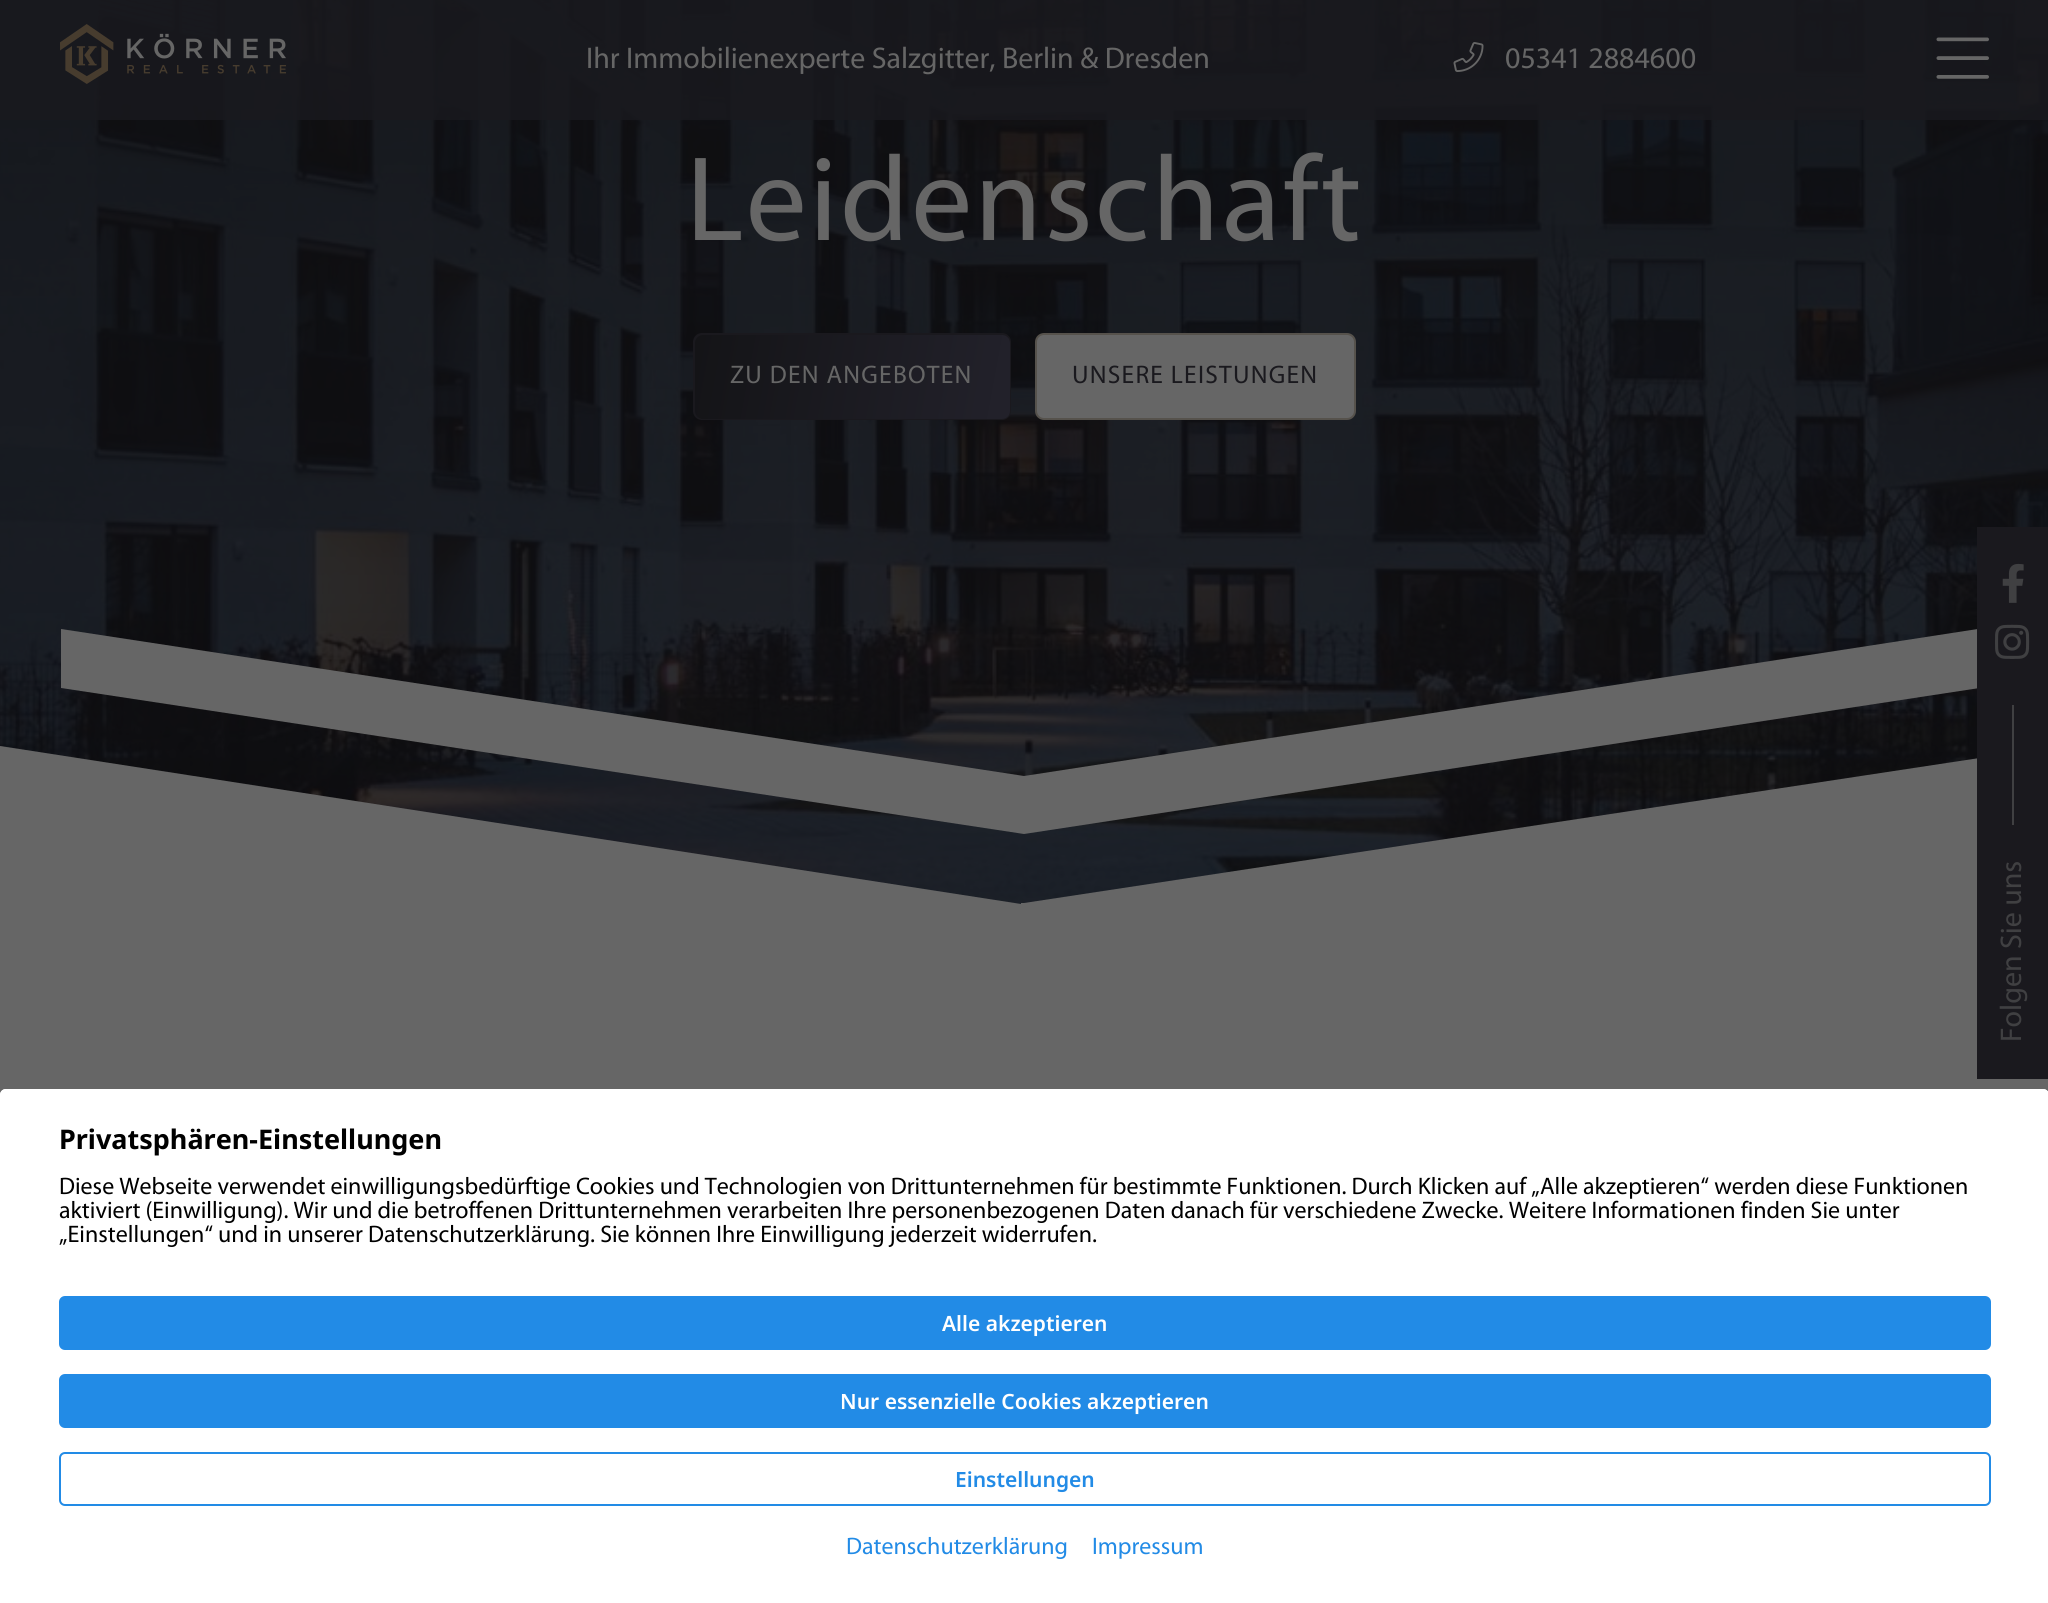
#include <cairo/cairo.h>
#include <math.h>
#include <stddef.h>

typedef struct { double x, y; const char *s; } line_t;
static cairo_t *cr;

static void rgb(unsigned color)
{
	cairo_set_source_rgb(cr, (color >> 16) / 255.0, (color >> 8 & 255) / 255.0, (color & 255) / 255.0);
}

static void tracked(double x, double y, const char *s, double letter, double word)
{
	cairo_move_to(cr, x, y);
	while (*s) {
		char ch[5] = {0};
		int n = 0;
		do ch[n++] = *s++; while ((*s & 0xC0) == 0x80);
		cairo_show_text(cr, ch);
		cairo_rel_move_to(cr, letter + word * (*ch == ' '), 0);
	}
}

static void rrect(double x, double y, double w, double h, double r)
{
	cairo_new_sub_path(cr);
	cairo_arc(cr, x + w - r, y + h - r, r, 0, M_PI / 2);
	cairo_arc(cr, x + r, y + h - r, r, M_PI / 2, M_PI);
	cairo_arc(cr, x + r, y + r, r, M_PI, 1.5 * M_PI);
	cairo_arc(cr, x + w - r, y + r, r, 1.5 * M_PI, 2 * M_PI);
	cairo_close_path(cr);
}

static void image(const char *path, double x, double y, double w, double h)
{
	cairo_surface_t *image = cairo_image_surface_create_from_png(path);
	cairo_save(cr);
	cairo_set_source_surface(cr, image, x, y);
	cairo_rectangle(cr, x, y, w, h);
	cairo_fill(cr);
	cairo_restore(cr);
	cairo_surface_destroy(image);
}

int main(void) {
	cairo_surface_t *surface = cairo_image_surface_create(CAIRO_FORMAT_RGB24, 2048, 1603);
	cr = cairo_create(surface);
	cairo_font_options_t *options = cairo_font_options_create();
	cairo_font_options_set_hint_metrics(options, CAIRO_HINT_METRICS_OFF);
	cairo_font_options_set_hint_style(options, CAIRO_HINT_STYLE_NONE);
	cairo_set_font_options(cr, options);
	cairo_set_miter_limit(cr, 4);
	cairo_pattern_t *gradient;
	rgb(0x666666);
	cairo_paint(cr);
	image("img/4.png", 0, 0, 2048, 904);
	cairo_set_source_rgba(cr, 0.102, 0.098, 0.118, 0.8);
	cairo_rectangle(cr, 0, 0, 2048, 120);
	cairo_fill(cr);
	image("img/1.png", 60, 24, 226, 60);
	image("img/2.png", 1453, 42, 31, 30);
	image("img/3.png", 1936, 37, 53, 42);
	rgb(0x1a191e);
	rrect(694, 334, 316, 85, 8);
	cairo_fill_preserve(cr);
	cairo_stroke(cr);
	gradient = cairo_pattern_create_linear(692, 347, 1012, 406);
	cairo_pattern_add_color_stop_rgba(gradient, 0.01, 0.078, 0.078, 0.09, 1);
	cairo_pattern_add_color_stop_rgba(gradient, 0.96, 0.133, 0.129, 0.165, 1);
	cairo_set_source(cr, gradient);
	cairo_pattern_destroy(gradient);
	rrect(695, 335, 315, 84, 8);
	cairo_fill(cr);
	rgb(0x666666);
	rrect(1036, 334, 319, 85, 8);
	cairo_fill_preserve(cr);
	rgb(0x56524c);
	cairo_stroke(cr);
	rgb(0x666666);
	cairo_new_path(cr);
	cairo_move_to(cr, 1024, 776);
	cairo_line_to(cr, 61, 629);
	cairo_line_to(cr, 61, 688);
	cairo_line_to(cr, 1024, 834);
	cairo_line_to(cr, 1986, 687);
	cairo_line_to(cr, 1986, 757);
	cairo_line_to(cr, 1024, 903);
	cairo_line_to(cr, 1021, 903);
	cairo_line_to(cr, 1021, 904);
	cairo_line_to(cr, 0, 746);
	cairo_line_to(cr, 0, 906);
	cairo_line_to(cr, 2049, 906);
	cairo_line_to(cr, 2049, 618);
	cairo_close_path(cr);
	cairo_fill(cr);
	rgb(0x1a191e);
	cairo_rectangle(cr, 1977, 527, 71, 552);
	cairo_fill(cr);
	image("img/5.png", 2002, 563, 22, 40);
	image("img/6.png", 1995, 624, 35, 35);
	rgb(0x404042);
	cairo_rectangle(cr, 2012, 705, 2, 120);
	cairo_fill(cr);
	rgb(0xffffff);
	cairo_new_path(cr);
	cairo_move_to(cr, 6, 1089);
	cairo_line_to(cr, 2043, 1089);
	cairo_curve_to(cr, 2046.5, 1089, 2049, 1091.5, 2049, 1095);
	cairo_line_to(cr, 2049, 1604);
	cairo_line_to(cr, 0, 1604);
	cairo_line_to(cr, 0, 1095);
	cairo_curve_to(cr, 0, 1091.5, 2.5, 1089, 6, 1089);
	cairo_close_path(cr);
	cairo_fill(cr);
	rrect(0, 1089, 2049, 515, 6);
	cairo_fill(cr);
	rgb(0x228be6);
	rrect(59, 1296, 1932, 54, 6);
	cairo_fill(cr);
	rrect(59, 1374, 1932, 54, 6);
	cairo_fill(cr);
	rrect(60, 1453, 1930, 52, 5);
	cairo_stroke(cr);
	cairo_select_font_face(cr, "Myriad", CAIRO_FONT_SLANT_NORMAL, CAIRO_FONT_WEIGHT_NORMAL);
	cairo_set_font_size(cr, 30);
	rgb(0x666666);
	cairo_move_to(cr, 586, 68);
	cairo_show_text(cr, "Ihr Immobilienexperte Salzgitter, Berlin & Dresden");
	cairo_move_to(cr, 1505, 68);
	cairo_show_text(cr, "05341 2884600");
	cairo_set_font_size(cr, 121.5);
	tracked(686, 240, "Leidenschaft", 2.5, 0);
	cairo_set_font_size(cr, 25.5);
	tracked(730, 383, "ZU DEN ANGEBOTEN", 1.25, 0);
	rgb(0x1a191e);
	tracked(1072, 383, "UNSERE LEISTUNGEN", 1.25, 0);
	cairo_set_font_size(cr, 30);
	rgb(0x404042);
	cairo_save(cr);
	cairo_translate(cr, 2021, 1042);
	cairo_rotate(cr, -90 * M_PI / 180);
	cairo_move_to(cr, 0, 0);
	cairo_show_text(cr, "Folgen Sie uns");
	cairo_restore(cr);
	cairo_select_font_face(cr, "Noto Sans", CAIRO_FONT_SLANT_NORMAL, CAIRO_FONT_WEIGHT_BOLD);
	cairo_set_font_size(cr, 27);
	rgb(0x000000);
	cairo_move_to(cr, 59, 1149);
	cairo_show_text(cr, "Privatsphären-Einstellungen");
	cairo_select_font_face(cr, "Myriad", CAIRO_FONT_SLANT_NORMAL, CAIRO_FONT_WEIGHT_NORMAL);
	cairo_set_font_size(cr, 24);
	{
		static const line_t items[] = {
			{59, 1194, "Diese Webseite verwendet einwilligungsbedürftige Cookies und Technologien von Drittunternehmen für bestimmte Funktionen. Durch Klicken auf „Alle akzeptieren“ werden diese Funktionen"},
			{59, 1218, "aktiviert (Einwilligung). Wir und die betroffenen Drittunternehmen verarbeiten Ihre personenbezogenen Daten danach für verschiedene Zwecke. Weitere Informationen finden Sie unter"},
			{59, 1242, "„Einstellungen“ und in unserer Datenschutzerklärung. Sie können Ihre Einwilligung jederzeit widerrufen."},
		};
		for (size_t i = 0; i < sizeof items / sizeof *items; i++) {
			cairo_move_to(cr, items[i].x, items[i].y);
			cairo_show_text(cr, items[i].s);
		}
	}
	cairo_select_font_face(cr, "Noto Sans SemiBold", CAIRO_FONT_SLANT_NORMAL, CAIRO_FONT_WEIGHT_NORMAL);
	cairo_set_font_size(cr, 21);
	rgb(0xffffff);
	cairo_move_to(cr, 942, 1331);
	cairo_show_text(cr, "Alle akzeptieren");
	cairo_move_to(cr, 840, 1409);
	cairo_show_text(cr, "Nur essenzielle Cookies akzeptieren");
	rgb(0x228be6);
	cairo_move_to(cr, 955, 1487);
	cairo_show_text(cr, "Einstellungen");
	cairo_select_font_face(cr, "Myriad", CAIRO_FONT_SLANT_NORMAL, CAIRO_FONT_WEIGHT_NORMAL);
	cairo_set_font_size(cr, 24);
	cairo_move_to(cr, 846, 1554);
	cairo_show_text(cr, "Datenschutzerklärung");
	cairo_move_to(cr, 1092, 1554);
	cairo_show_text(cr, "Impressum");
	cairo_surface_write_to_png(surface, "page.png");
	cairo_font_options_destroy(options);
	cairo_destroy(cr);
	cairo_surface_destroy(surface);
	return 0;
}
